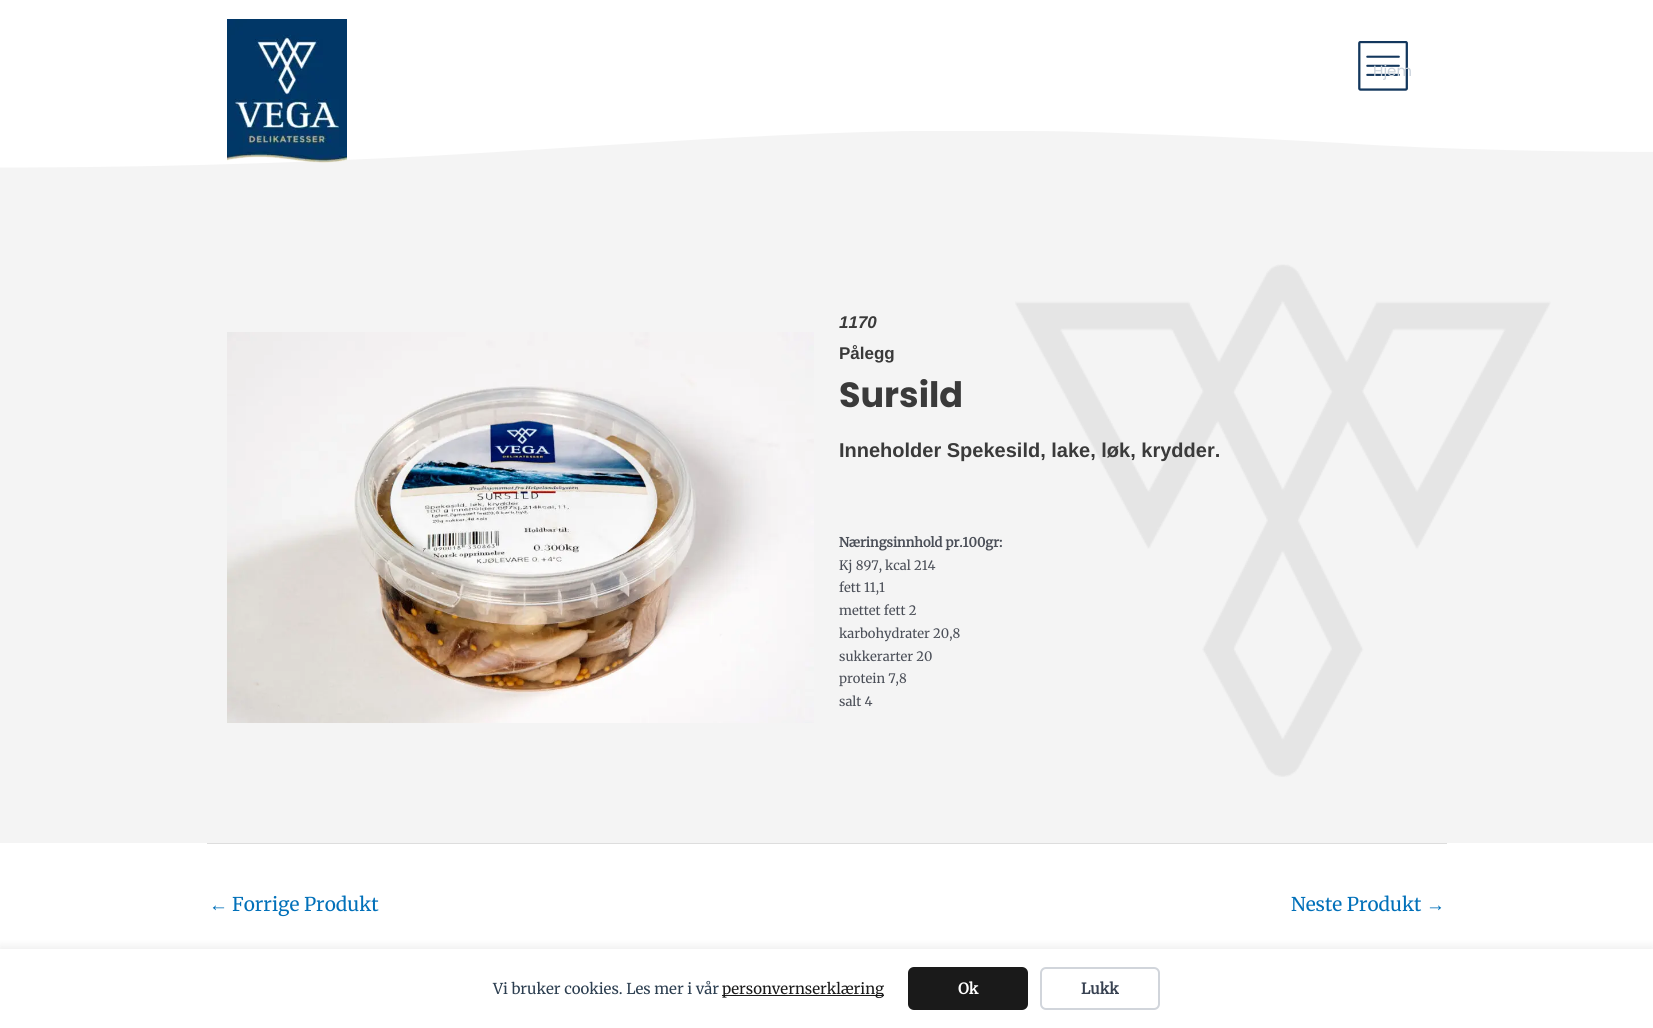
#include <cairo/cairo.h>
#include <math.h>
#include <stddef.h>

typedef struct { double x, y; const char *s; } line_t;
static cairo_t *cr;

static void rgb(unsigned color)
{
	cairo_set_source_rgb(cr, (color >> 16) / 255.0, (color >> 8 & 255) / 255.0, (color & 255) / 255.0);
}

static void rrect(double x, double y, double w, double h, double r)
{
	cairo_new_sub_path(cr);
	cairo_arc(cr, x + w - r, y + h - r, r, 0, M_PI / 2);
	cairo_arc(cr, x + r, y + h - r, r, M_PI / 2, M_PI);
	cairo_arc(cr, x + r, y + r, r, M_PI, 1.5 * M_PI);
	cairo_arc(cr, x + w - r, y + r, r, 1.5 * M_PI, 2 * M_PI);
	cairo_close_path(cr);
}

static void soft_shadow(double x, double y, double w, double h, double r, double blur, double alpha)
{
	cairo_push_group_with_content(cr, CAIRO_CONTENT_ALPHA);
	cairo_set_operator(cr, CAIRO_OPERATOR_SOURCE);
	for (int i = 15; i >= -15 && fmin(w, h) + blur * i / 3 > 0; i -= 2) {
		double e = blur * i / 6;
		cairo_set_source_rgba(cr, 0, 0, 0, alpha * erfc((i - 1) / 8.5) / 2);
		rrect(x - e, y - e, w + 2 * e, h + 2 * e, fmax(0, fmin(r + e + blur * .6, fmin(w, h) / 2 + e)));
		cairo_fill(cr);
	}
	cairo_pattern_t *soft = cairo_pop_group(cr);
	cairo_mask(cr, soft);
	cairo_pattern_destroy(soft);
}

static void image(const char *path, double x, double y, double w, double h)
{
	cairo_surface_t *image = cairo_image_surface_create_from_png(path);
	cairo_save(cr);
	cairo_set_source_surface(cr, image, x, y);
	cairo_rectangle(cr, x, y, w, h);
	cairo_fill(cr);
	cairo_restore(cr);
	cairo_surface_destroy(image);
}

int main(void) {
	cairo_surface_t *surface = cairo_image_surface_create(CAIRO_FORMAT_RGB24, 1653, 1028);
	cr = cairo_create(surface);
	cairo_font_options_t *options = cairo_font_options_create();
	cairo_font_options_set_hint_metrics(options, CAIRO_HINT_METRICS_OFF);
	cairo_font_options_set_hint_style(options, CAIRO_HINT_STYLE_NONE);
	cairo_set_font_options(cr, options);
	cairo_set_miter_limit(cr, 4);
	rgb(0xffffff);
	cairo_paint(cr);
	rgb(0xf4f4f4);
	cairo_rectangle(cr, 0, 131, 1653, 712);
	cairo_fill(cr);
	rgb(0xffffff);
	cairo_new_path(cr);
	cairo_move_to(cr, 1020, 131);
	cairo_curve_to(cr, 809, 127, 598, 148, 388, 158);
	cairo_curve_to(cr, 224, 166, 60, 169, -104, 167);
	cairo_curve_to(cr, -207, 165, -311, 162, -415, 156);
	cairo_line_to(cr, -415, 128);
	cairo_line_to(cr, 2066, 128);
	cairo_line_to(cr, 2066, 140);
	cairo_curve_to(cr, 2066, 140, 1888, 153, 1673, 152);
	cairo_curve_to(cr, 1576, 152, 1443, 150, 1341, 143);
	cairo_curve_to(cr, 1288, 140, 1212, 136, 1143, 134);
	cairo_curve_to(cr, 1076, 131, 1045, 131, 1020, 131);
	cairo_close_path(cr);
	cairo_fill(cr);
	image("img/1.png", 227, 19, 120, 144);
	image("img/2.png", 1358, 41, 50, 50);
	image("img/3.png", 1015, 264, 536, 513);
	image("img/4.png", 227, 332, 587, 391);
	rgb(0xdddddd);
	cairo_rectangle(cr, 207, 843, 1240, 1);
	cairo_fill(cr);
	rgb(0x000000);
	soft_shadow(0, 947, 1653, 79, 0, 5, 0.08);
	rgb(0xffffff);
	cairo_rectangle(cr, 0, 949, 1653, 79);
	cairo_fill(cr);
	rgb(0x1a1a1a);
	cairo_rectangle(cr, 722, 995, 162, 1);
	cairo_fill(cr);
	rrect(908, 967, 120, 43, 6);
	cairo_fill(cr);
	rrect(1041, 968, 118, 41, 5);
	rgb(0xd1d5db);
	cairo_stroke(cr);
	cairo_select_font_face(cr, "Poppins", CAIRO_FONT_SLANT_NORMAL, CAIRO_FONT_WEIGHT_NORMAL);
	cairo_set_font_size(cr, 15);
	rgb(0xcad2db);
	cairo_move_to(cr, 1373, 76);
	cairo_show_text(cr, "Hjem");
	cairo_select_font_face(cr, "Liberation Sans", CAIRO_FONT_SLANT_ITALIC, CAIRO_FONT_WEIGHT_BOLD);
	cairo_set_font_size(cr, 17);
	rgb(0x3a3a3a);
	cairo_move_to(cr, 839, 328);
	cairo_show_text(cr, "1170");
	cairo_select_font_face(cr, "Liberation Sans", CAIRO_FONT_SLANT_NORMAL, CAIRO_FONT_WEIGHT_BOLD);
	cairo_move_to(cr, 839, 359);
	cairo_show_text(cr, "Pålegg");
	cairo_select_font_face(cr, "Poppins", CAIRO_FONT_SLANT_NORMAL, CAIRO_FONT_WEIGHT_BOLD);
	cairo_set_font_size(cr, 35);
	cairo_move_to(cr, 839, 407);
	cairo_show_text(cr, "Sursild");
	cairo_select_font_face(cr, "Liberation Sans", CAIRO_FONT_SLANT_NORMAL, CAIRO_FONT_WEIGHT_BOLD);
	cairo_set_font_size(cr, 20);
	cairo_move_to(cr, 839, 457);
	cairo_show_text(cr, "Inneholder Spekesild, lake, løk, krydder.");
	cairo_select_font_face(cr, "Merriweather", CAIRO_FONT_SLANT_NORMAL, CAIRO_FONT_WEIGHT_BOLD);
	cairo_set_font_size(cr, 13);
	rgb(0x4b4f58);
	cairo_move_to(cr, 839, 547);
	cairo_show_text(cr, "Næringsinnhold pr.100gr:");
	cairo_select_font_face(cr, "Merriweather Light", CAIRO_FONT_SLANT_NORMAL, CAIRO_FONT_WEIGHT_NORMAL);
	{
		static const line_t items[] = {
			{839, 570, "Kj 897, kcal 214"},
			{839, 592, "fett 11,1"},
			{839, 615, "mettet fett 2"},
			{839, 638, "karbohydrater 20,8"},
			{839, 661, "sukkerarter 20"},
			{839, 683, "protein 7,8"},
			{839, 706, "salt 4"},
		};
		for (size_t i = 0; i < sizeof items / sizeof *items; i++) {
			cairo_move_to(cr, items[i].x, items[i].y);
			cairo_show_text(cr, items[i].s);
		}
	}
	cairo_select_font_face(cr, "Liberation Serif", CAIRO_FONT_SLANT_NORMAL, CAIRO_FONT_WEIGHT_NORMAL);
	cairo_set_font_size(cr, 19);
	rgb(0x0170b9);
	cairo_move_to(cr, 209, 911);
	cairo_show_text(cr, "←");
	cairo_select_font_face(cr, "Merriweather Light", CAIRO_FONT_SLANT_NORMAL, CAIRO_FONT_WEIGHT_NORMAL);
	cairo_move_to(cr, 232, 911);
	cairo_show_text(cr, "Forrige Produkt");
	cairo_move_to(cr, 1291, 911);
	cairo_show_text(cr, "Neste Produkt");
	cairo_select_font_face(cr, "Liberation Serif", CAIRO_FONT_SLANT_NORMAL, CAIRO_FONT_WEIGHT_NORMAL);
	cairo_move_to(cr, 1426, 911);
	cairo_show_text(cr, "→");
	cairo_select_font_face(cr, "Merriweather Light", CAIRO_FONT_SLANT_NORMAL, CAIRO_FONT_WEIGHT_NORMAL);
	cairo_set_font_size(cr, 15);
	rgb(0x2c3e50);
	cairo_move_to(cr, 493, 994);
	cairo_show_text(cr, "Vi bruker cookies. Les mer i vår");
	rgb(0x1a1a1a);
	cairo_move_to(cr, 722, 994);
	cairo_show_text(cr, "personvernserklæring");
	cairo_select_font_face(cr, "Merriweather", CAIRO_FONT_SLANT_NORMAL, CAIRO_FONT_WEIGHT_BOLD);
	rgb(0xffffff);
	cairo_move_to(cr, 958, 994);
	cairo_show_text(cr, "Ok");
	rgb(0x374151);
	cairo_move_to(cr, 1081, 994);
	cairo_show_text(cr, "Lukk");
	cairo_surface_write_to_png(surface, "page.png");
	cairo_font_options_destroy(options);
	cairo_destroy(cr);
	cairo_surface_destroy(surface);
	return 0;
}
